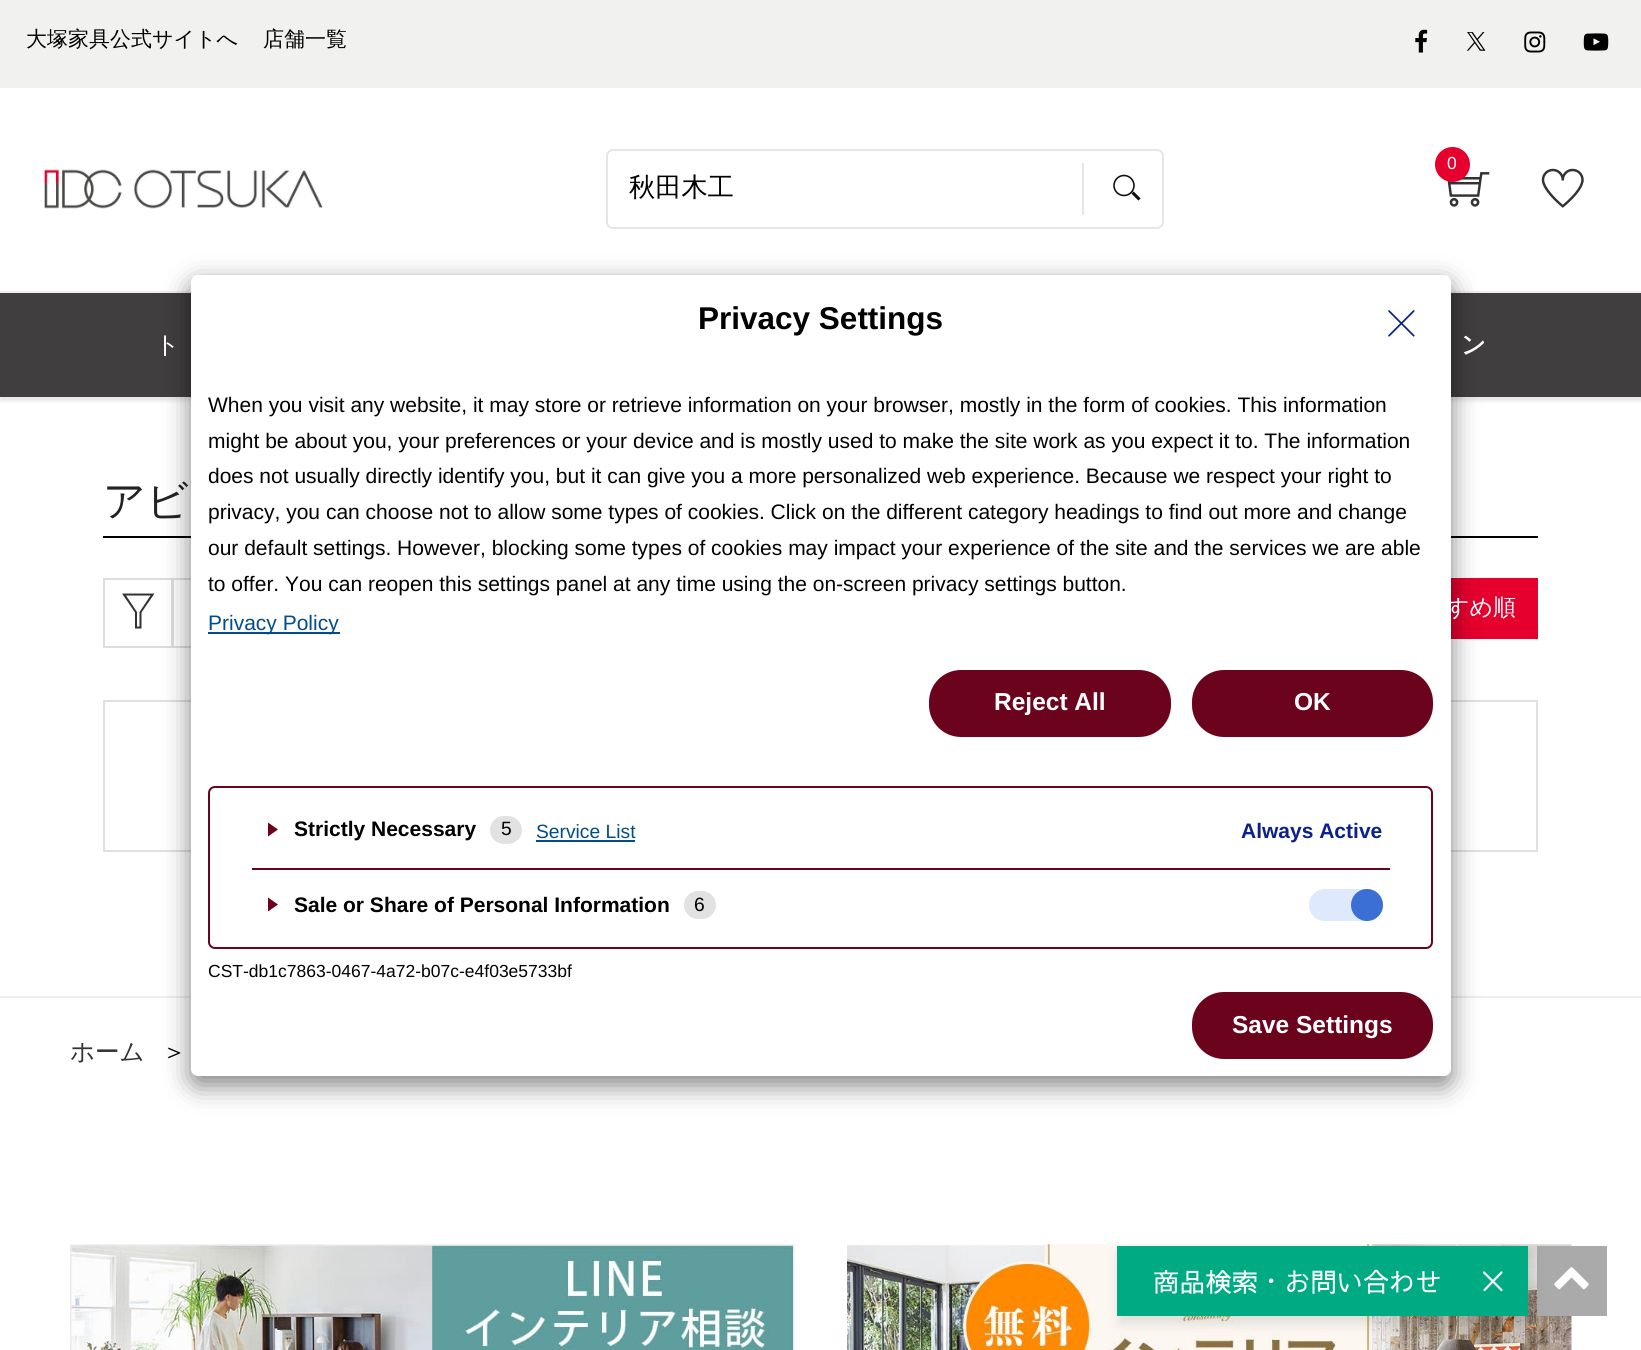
#include <cairo/cairo.h>
#include <math.h>
#include <stddef.h>

typedef struct { double x, y; const char *s; } line_t;
typedef struct { double x, y, w, h; unsigned color; } box_t;
static cairo_t *cr;

static void rgb(unsigned color)
{
	cairo_set_source_rgb(cr, (color >> 16) / 255.0, (color >> 8 & 255) / 255.0, (color & 255) / 255.0);
}

static void rrect(double x, double y, double w, double h, double r)
{
	cairo_new_sub_path(cr);
	cairo_arc(cr, x + w - r, y + h - r, r, 0, M_PI / 2);
	cairo_arc(cr, x + r, y + h - r, r, M_PI / 2, M_PI);
	cairo_arc(cr, x + r, y + r, r, M_PI, 1.5 * M_PI);
	cairo_arc(cr, x + w - r, y + r, r, 1.5 * M_PI, 2 * M_PI);
	cairo_close_path(cr);
}

static void soft_shadow(double x, double y, double w, double h, double r, double blur, double alpha)
{
	cairo_push_group_with_content(cr, CAIRO_CONTENT_ALPHA);
	cairo_set_operator(cr, CAIRO_OPERATOR_SOURCE);
	for (int i = 15; i >= -15 && fmin(w, h) + blur * i / 3 > 0; i -= 2) {
		double e = blur * i / 6;
		cairo_set_source_rgba(cr, 0, 0, 0, alpha * erfc((i - 1) / 8.5) / 2);
		rrect(x - e, y - e, w + 2 * e, h + 2 * e, fmax(0, fmin(r + e + blur * .6, fmin(w, h) / 2 + e)));
		cairo_fill(cr);
	}
	cairo_pattern_t *soft = cairo_pop_group(cr);
	cairo_mask(cr, soft);
	cairo_pattern_destroy(soft);
}

static void image(const char *path, double x, double y, double w, double h)
{
	cairo_surface_t *image = cairo_image_surface_create_from_png(path);
	cairo_save(cr);
	cairo_set_source_surface(cr, image, x, y);
	cairo_rectangle(cr, x, y, w, h);
	cairo_fill(cr);
	cairo_restore(cr);
	cairo_surface_destroy(image);
}

int main(void) {
	cairo_surface_t *surface = cairo_image_surface_create(CAIRO_FORMAT_RGB24, 1641, 1350);
	cr = cairo_create(surface);
	cairo_font_options_t *options = cairo_font_options_create();
	cairo_font_options_set_hint_metrics(options, CAIRO_HINT_METRICS_OFF);
	cairo_font_options_set_hint_style(options, CAIRO_HINT_STYLE_NONE);
	cairo_set_font_options(cr, options);
	cairo_set_miter_limit(cr, 4);
	rgb(0xffffff);
	cairo_paint(cr);
	rgb(0xf1f1ef);
	cairo_rectangle(cr, 0, 0, 1641, 88);
	cairo_fill(cr);
	image("img/1.png", 1415, 29, 13, 24);
	image("img/2.png", 1467, 32, 19, 19);
	image("img/3.png", 1524, 31, 22, 22);
	image("img/4.png", 1583, 33, 26, 18);
	image("img/5.png", 1447, 172, 43, 35);
	rgb(0xe5002d);
	cairo_arc(cr, 1452.5, 164.5, 17.5, 0, 2 * M_PI);
	cairo_fill(cr);
	image("img/6.png", 1541, 168, 43, 40);
	image("img/7.png", 43, 169, 280, 40);
	rrect(607, 150, 556, 78, 6);
	rgb(0xe6e6e6);
	cairo_stroke(cr);
	cairo_rectangle(cr, 1082, 163, 2, 52);
	cairo_fill(cr);
	cairo_arc(cr, 1124, 185.5, 10, 0, 2 * M_PI);
	rgb(0x111111);
	cairo_set_line_width(cr, 1.6);
	cairo_stroke(cr);
	cairo_new_path(cr);
	cairo_move_to(cr, 1132.5, 192.5);
	cairo_line_to(cr, 1139.5, 199.5);
	cairo_set_line_width(cr, 3.1);
	cairo_stroke(cr);
	rgb(0x000000);
	soft_shadow(0, 294, 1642, 107, 0, 2, 0.1);
	{
		static const box_t items[] = {
			{0, 293, 1641, 104, 0x403e3e},
			{0, 291, 1641, 2, 0xeeeeee},
			{103, 536, 1435, 2, 0x000000},
		};
		for (size_t i = 0; i < sizeof items / sizeof *items; i++) {
			rgb(items[i].color);
			cairo_rectangle(cr, items[i].x, items[i].y, items[i].w, items[i].h);
			cairo_fill(cr);
		}
	}
	cairo_rectangle(cr, 104, 579, 68, 68);
	rgb(0xdddddd);
	cairo_set_line_width(cr, 2);
	cairo_stroke(cr);
	rgb(0x333333);
	cairo_new_path(cr);
	cairo_move_to(cr, 122, 593.5);
	cairo_line_to(cr, 135, 612.5);
	cairo_line_to(cr, 135, 628.5);
	cairo_line_to(cr, 141.5, 628.5);
	cairo_line_to(cr, 141.5, 612.5);
	cairo_line_to(cr, 154.5, 593.5);
	cairo_close_path(cr);
	cairo_move_to(cr, 139.5, 612);
	cairo_line_to(cr, 139.5, 626.5);
	cairo_line_to(cr, 137, 626.5);
	cairo_line_to(cr, 137, 612);
	cairo_line_to(cr, 126, 595.5);
	cairo_line_to(cr, 150.5, 595.5);
	cairo_close_path(cr);
	cairo_fill(cr);
	cairo_rectangle(cr, 173, 579, 106, 68);
	rgb(0xdddddd);
	cairo_stroke(cr);
	rgb(0xe5002d);
	cairo_rectangle(cr, 1451, 578, 87, 61);
	cairo_fill(cr);
	cairo_rectangle(cr, 104, 701, 1433, 150);
	rgb(0xe0e0e0);
	cairo_stroke(cr);
	rgb(0xeeeeee);
	cairo_rectangle(cr, 0, 996, 1641, 2);
	cairo_fill(cr);
	image("img/8.png", 70, 1244, 725, 106);
	image("img/9.png", 847, 1244, 725, 106);
	rgb(0xaaaaaa);
	cairo_rectangle(cr, 1537, 1246, 70, 70);
	cairo_fill(cr);
	image("img/10.png", 1554, 1267, 35, 23);
	rgb(0x000000);
	soft_shadow(191, 284, 1260, 801, 7, 13, 0.5);
	rgb(0xffffff);
	rrect(191, 275, 1260, 801, 7);
	cairo_fill(cr);
	image("img/11.png", 1388, 310, 27, 27);
	rgb(0x004d8a);
	cairo_rectangle(cr, 208, 632, 132, 2);
	cairo_fill(cr);
	rgb(0x6c031d);
	rrect(930, 671, 240, 65, 31);
	cairo_fill_preserve(cr);
	cairo_stroke(cr);
	rrect(1193, 671, 239, 65, 31);
	cairo_fill_preserve(cr);
	cairo_stroke(cr);
	rrect(209, 787, 1223, 161, 6);
	cairo_stroke(cr);
	cairo_new_path(cr);
	cairo_move_to(cr, 268, 836.5);
	cairo_line_to(cr, 278, 829.5);
	cairo_line_to(cr, 268, 822.5);
	cairo_close_path(cr);
	cairo_fill(cr);
	rgb(0xe2e2e2);
	rrect(490, 816, 32, 28, 14);
	cairo_fill(cr);
	rgb(0x004d8a);
	cairo_rectangle(cr, 536, 840, 99, 2);
	cairo_fill(cr);
	rgb(0x6c031d);
	cairo_rectangle(cr, 252, 868, 1138, 2);
	cairo_fill(cr);
	cairo_new_path(cr);
	cairo_move_to(cr, 268, 911.5);
	cairo_line_to(cr, 278, 904.5);
	cairo_line_to(cr, 268, 897.5);
	cairo_close_path(cr);
	cairo_fill(cr);
	rgb(0xe2e2e2);
	rrect(684, 891, 32, 28, 14);
	cairo_fill(cr);
	rgb(0xdfe9fe);
	cairo_new_path(cr);
	cairo_move_to(cr, 1325, 889);
	cairo_line_to(cr, 1367, 889);
	cairo_curve_to(cr, 1376, 889, 1383, 896, 1383, 905);
	cairo_curve_to(cr, 1383, 914, 1376, 921, 1367, 921);
	cairo_line_to(cr, 1325, 921);
	cairo_curve_to(cr, 1316, 921, 1309, 914, 1309, 905);
	cairo_curve_to(cr, 1309, 896, 1316, 889, 1325, 889);
	cairo_close_path(cr);
	cairo_fill(cr);
	rgb(0x3c6fd5);
	cairo_arc(cr, 1367, 905, 16, 0, 2 * M_PI);
	cairo_fill(cr);
	rgb(0x6c031d);
	rrect(1193, 993, 239, 65, 31);
	cairo_fill_preserve(cr);
	cairo_stroke(cr);
	rgb(0x000000);
	soft_shadow(1120, 1253, 411, 70, 0, 7, 0.12);
	rgb(0x00ab84);
	cairo_rectangle(cr, 1117, 1246, 411, 70);
	cairo_fill(cr);
	cairo_new_path(cr);
	cairo_move_to(cr, 1484, 1272.5);
	cairo_line_to(cr, 1501.5, 1290);
	cairo_move_to(cr, 1484.5, 1290);
	cairo_line_to(cr, 1501.5, 1272.5);
	rgb(0xffffff);
	cairo_set_line_width(cr, 2.2);
	cairo_set_line_cap(cr, CAIRO_LINE_CAP_ROUND);
	cairo_set_line_join(cr, CAIRO_LINE_JOIN_ROUND);
	cairo_stroke(cr);
	cairo_select_font_face(cr, "WenQuanYi Zen Hei Medium", CAIRO_FONT_SLANT_NORMAL, CAIRO_FONT_WEIGHT_NORMAL);
	cairo_set_font_size(cr, 21);
	rgb(0x000000);
	cairo_move_to(cr, 26, 46);
	cairo_show_text(cr, "大塚家具公式サイトへ");
	cairo_move_to(cr, 263, 46);
	cairo_show_text(cr, "店舗一覧");
	cairo_select_font_face(cr, "Liberation Sans", CAIRO_FONT_SLANT_NORMAL, CAIRO_FONT_WEIGHT_NORMAL);
	cairo_set_font_size(cr, 17.5);
	rgb(0xffffff);
	cairo_move_to(cr, 1447, 169);
	cairo_show_text(cr, "0");
	cairo_select_font_face(cr, "WenQuanYi Zen Hei Medium", CAIRO_FONT_SLANT_NORMAL, CAIRO_FONT_WEIGHT_NORMAL);
	cairo_set_font_size(cr, 26.25);
	rgb(0x000000);
	cairo_move_to(cr, 629, 196);
	cairo_show_text(cr, "秋田木工");
	cairo_set_font_size(cr, 24.5);
	rgb(0xffffff);
	cairo_move_to(cr, 155, 353);
	cairo_show_text(cr, "ト");
	cairo_select_font_face(cr, "WenQuanYi Zen Hei", CAIRO_FONT_SLANT_NORMAL, CAIRO_FONT_WEIGHT_BOLD);
	cairo_move_to(cr, 1461, 353);
	cairo_show_text(cr, "ン");
	cairo_select_font_face(cr, "WenQuanYi Zen Hei Medium", CAIRO_FONT_SLANT_NORMAL, CAIRO_FONT_WEIGHT_NORMAL);
	cairo_set_font_size(cr, 42);
	rgb(0x232323);
	cairo_move_to(cr, 103, 515);
	cairo_show_text(cr, "アビ");
	cairo_set_font_size(cr, 23);
	rgb(0xffffff);
	cairo_move_to(cr, 1446, 615);
	cairo_show_text(cr, "すめ順");
	cairo_set_font_size(cr, 24.5);
	rgb(0x333333);
	cairo_move_to(cr, 70, 1060);
	cairo_show_text(cr, "ホーム");
	rgb(0x000000);
	cairo_move_to(cr, 162, 1060);
	cairo_show_text(cr, "＞");
	cairo_select_font_face(cr, "Liberation Sans", CAIRO_FONT_SLANT_NORMAL, CAIRO_FONT_WEIGHT_BOLD);
	cairo_set_font_size(cr, 31.5);
	cairo_move_to(cr, 698, 329);
	cairo_show_text(cr, "Privacy Settings");
	cairo_select_font_face(cr, "Liberation Sans", CAIRO_FONT_SLANT_NORMAL, CAIRO_FONT_WEIGHT_NORMAL);
	cairo_set_font_size(cr, 21);
	{
		static const line_t items[] = {
			{208, 412, "When you visit any website, it may store or retrieve information on your browser, mostly in the form of cookies. This information"},
			{208, 448, "might be about you, your preferences or your device and is mostly used to make the site work as you expect it to. The information"},
			{208, 483, "does not usually directly identify you, but it can give you a more personalized web experience. Because we respect your right to"},
			{208, 519, "privacy, you can choose not to allow some types of cookies. Click on the different category headings to find out more and change"},
			{208, 555, "our default settings. However, blocking some types of cookies may impact your experience of the site and the services we are able"},
			{208, 591, "to offer. You can reopen this settings panel at any time using the on-screen privacy settings button."},
		};
		for (size_t i = 0; i < sizeof items / sizeof *items; i++) {
			cairo_move_to(cr, items[i].x, items[i].y);
			cairo_show_text(cr, items[i].s);
		}
	}
	rgb(0x004d8a);
	cairo_move_to(cr, 208, 630);
	cairo_show_text(cr, "Privacy Policy");
	cairo_select_font_face(cr, "Liberation Sans", CAIRO_FONT_SLANT_NORMAL, CAIRO_FONT_WEIGHT_BOLD);
	cairo_set_font_size(cr, 24.5);
	rgb(0xffffff);
	cairo_move_to(cr, 994, 710);
	cairo_show_text(cr, "Reject All");
	cairo_move_to(cr, 1294, 710);
	cairo_show_text(cr, "OK");
	cairo_set_font_size(cr, 21);
	rgb(0x000000);
	cairo_move_to(cr, 294, 836);
	cairo_show_text(cr, "Strictly Necessary");
	cairo_select_font_face(cr, "Liberation Sans", CAIRO_FONT_SLANT_NORMAL, CAIRO_FONT_WEIGHT_NORMAL);
	cairo_set_font_size(cr, 19.25);
	cairo_move_to(cr, 501, 835);
	cairo_show_text(cr, "5");
	rgb(0x004d8a);
	cairo_move_to(cr, 536, 838);
	cairo_show_text(cr, "Service List");
	cairo_select_font_face(cr, "Liberation Sans", CAIRO_FONT_SLANT_NORMAL, CAIRO_FONT_WEIGHT_BOLD);
	cairo_set_font_size(cr, 21);
	rgb(0x0b228a);
	cairo_move_to(cr, 1241, 838);
	cairo_show_text(cr, "Always Active");
	rgb(0x000000);
	cairo_move_to(cr, 294, 912);
	cairo_show_text(cr, "Sale or Share of Personal Information");
	cairo_select_font_face(cr, "Liberation Sans", CAIRO_FONT_SLANT_NORMAL, CAIRO_FONT_WEIGHT_NORMAL);
	cairo_set_font_size(cr, 19.25);
	cairo_move_to(cr, 694, 911);
	cairo_show_text(cr, "6");
	cairo_set_font_size(cr, 17.5);
	cairo_move_to(cr, 208, 977);
	cairo_show_text(cr, "CST-db1c7863-0467-4a72-b07c-e4f03e5733bf");
	cairo_select_font_face(cr, "Liberation Sans", CAIRO_FONT_SLANT_NORMAL, CAIRO_FONT_WEIGHT_BOLD);
	cairo_set_font_size(cr, 24.5);
	rgb(0xffffff);
	cairo_move_to(cr, 1232, 1033);
	cairo_show_text(cr, "Save Settings");
	cairo_select_font_face(cr, "Sawarabi Gothic", CAIRO_FONT_SLANT_NORMAL, CAIRO_FONT_WEIGHT_NORMAL);
	cairo_set_font_size(cr, 26.25);
	cairo_move_to(cr, 1153, 1292);
	cairo_show_text(cr, "商品検索・お問い合わせ");
	cairo_surface_write_to_png(surface, "page.png");
	cairo_font_options_destroy(options);
	cairo_destroy(cr);
	cairo_surface_destroy(surface);
	return 0;
}
